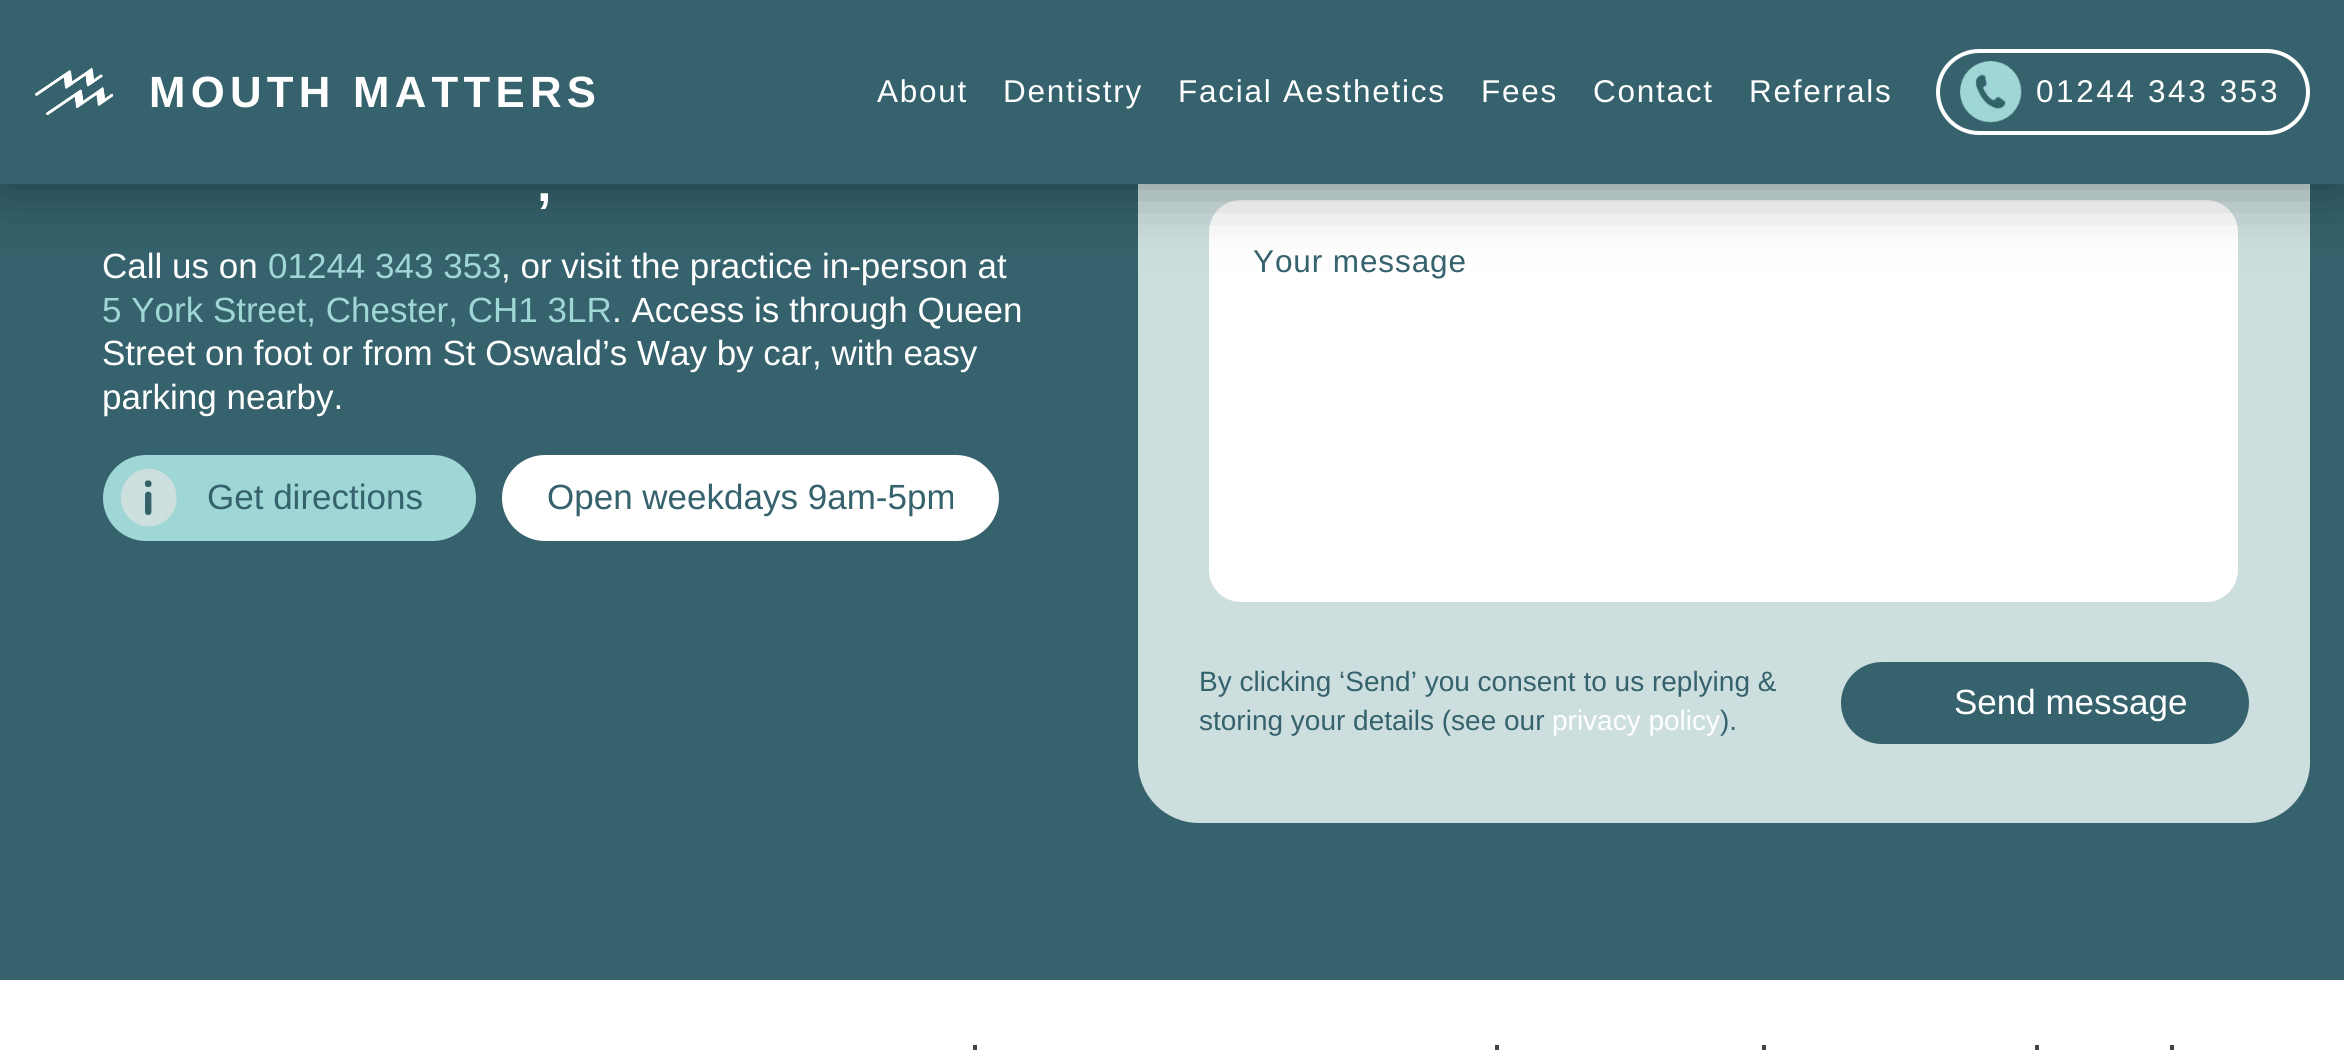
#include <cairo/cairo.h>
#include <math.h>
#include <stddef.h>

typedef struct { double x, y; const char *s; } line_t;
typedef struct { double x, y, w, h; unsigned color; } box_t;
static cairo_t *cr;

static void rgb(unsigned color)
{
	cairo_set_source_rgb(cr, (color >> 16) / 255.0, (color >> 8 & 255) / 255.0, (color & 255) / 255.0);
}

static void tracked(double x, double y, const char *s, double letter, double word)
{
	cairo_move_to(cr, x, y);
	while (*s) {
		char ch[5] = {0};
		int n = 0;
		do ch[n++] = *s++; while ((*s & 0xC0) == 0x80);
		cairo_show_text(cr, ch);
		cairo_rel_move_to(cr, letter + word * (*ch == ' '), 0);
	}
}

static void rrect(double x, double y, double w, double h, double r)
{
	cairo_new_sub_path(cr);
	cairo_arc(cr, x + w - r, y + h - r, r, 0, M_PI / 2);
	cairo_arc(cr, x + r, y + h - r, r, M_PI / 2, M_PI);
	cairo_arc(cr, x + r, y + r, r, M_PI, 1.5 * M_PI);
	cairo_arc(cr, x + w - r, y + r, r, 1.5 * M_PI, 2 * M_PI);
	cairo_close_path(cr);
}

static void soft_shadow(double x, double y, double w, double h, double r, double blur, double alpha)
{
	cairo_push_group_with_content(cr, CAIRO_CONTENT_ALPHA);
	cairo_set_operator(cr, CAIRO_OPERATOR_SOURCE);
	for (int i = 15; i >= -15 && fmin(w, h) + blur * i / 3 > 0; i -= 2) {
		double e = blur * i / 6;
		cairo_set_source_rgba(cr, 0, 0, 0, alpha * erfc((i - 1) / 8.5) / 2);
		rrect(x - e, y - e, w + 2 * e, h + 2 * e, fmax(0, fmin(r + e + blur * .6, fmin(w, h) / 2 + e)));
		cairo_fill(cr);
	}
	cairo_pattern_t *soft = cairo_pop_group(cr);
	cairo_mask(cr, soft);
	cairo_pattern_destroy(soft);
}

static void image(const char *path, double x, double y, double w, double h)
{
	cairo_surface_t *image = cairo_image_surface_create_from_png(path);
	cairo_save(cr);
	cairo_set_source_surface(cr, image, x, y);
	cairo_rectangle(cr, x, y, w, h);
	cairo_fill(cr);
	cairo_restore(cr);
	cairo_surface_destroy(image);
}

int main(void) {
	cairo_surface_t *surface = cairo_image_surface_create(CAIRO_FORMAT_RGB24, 2344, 1050);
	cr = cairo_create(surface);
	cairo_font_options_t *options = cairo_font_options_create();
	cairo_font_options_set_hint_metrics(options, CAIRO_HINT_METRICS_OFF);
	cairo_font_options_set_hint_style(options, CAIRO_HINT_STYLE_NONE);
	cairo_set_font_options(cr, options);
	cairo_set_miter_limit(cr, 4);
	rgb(0xffffff);
	cairo_paint(cr);
	rgb(0x35626c);
	cairo_rectangle(cr, 0, 184, 2344, 796);
	cairo_fill(cr);
	rgb(0xcddede);
	rrect(1138, -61, 1172, 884, 61);
	cairo_fill(cr);
	rgb(0xffffff);
	rrect(1209, 200, 1029, 402, 32);
	cairo_fill(cr);
	rgb(0x000000);
	soft_shadow(0, 0, 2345, 184, 0, 35, 0.4);
	rgb(0x35626c);
	cairo_rectangle(cr, 0, 0, 2344, 184);
	cairo_fill(cr);
	image("img/1.png", 35, 68, 79, 47);
	rrect(1938, 51, 370, 82, 41);
	rgb(0xffffff);
	cairo_set_line_width(cr, 4);
	cairo_stroke(cr);
	image("img/2.png", 1960, 61, 62, 62);
	rgb(0x9fd6d6);
	rrect(103, 455, 373, 86, 43);
	cairo_fill(cr);
	image("img/3.png", 120, 468, 57, 59);
	rgb(0xffffff);
	rrect(502, 455, 497, 86, 43);
	cairo_fill(cr);
	rgb(0x35626c);
	rrect(1841, 662, 408, 82, 41);
	cairo_fill(cr);
	{
		static const box_t items[] = {
			{973, 1045, 4, 5, 0x424448},
			{1495, 1045, 4, 5, 0x424448},
			{1762, 1045, 4, 5, 0x424448},
			{2035, 1045, 4, 5, 0x424448},
			{2170, 1045, 4, 5, 0x424448},
		};
		for (size_t i = 0; i < sizeof items / sizeof *items; i++) {
			rgb(items[i].color);
			cairo_rectangle(cr, items[i].x, items[i].y, items[i].w, items[i].h);
			cairo_fill(cr);
		}
	}
	cairo_select_font_face(cr, "Liberation Sans", CAIRO_FONT_SLANT_NORMAL, CAIRO_FONT_WEIGHT_BOLD);
	cairo_set_font_size(cr, 43.75);
	rgb(0xffffff);
	tracked(149, 107, "MOUTH MATTERS", 5.25, 0);
	cairo_select_font_face(cr, "Liberation Sans", CAIRO_FONT_SLANT_NORMAL, CAIRO_FONT_WEIGHT_NORMAL);
	cairo_set_font_size(cr, 31.5);
	{
		static const line_t items[] = {
			{877, 102, "About"},
			{1003, 102, "Dentistry"},
			{1178, 102, "Facial Aesthetics"},
			{1481, 102, "Fees"},
			{1593, 102, "Contact"},
			{1749, 102, "Referrals"},
		};
		for (size_t i = 0; i < sizeof items / sizeof *items; i++) {
			tracked(items[i].x, items[i].y, items[i].s, 1.75, 0);
		}
	}
	tracked(2036, 102, "01244 343 353", 2.6, 0);
	cairo_select_font_face(cr, "Liberation Sans", CAIRO_FONT_SLANT_NORMAL, CAIRO_FONT_WEIGHT_BOLD);
	cairo_set_font_size(cr, 52);
	tracked(537, 201, ",", 5.25, 0);
	cairo_select_font_face(cr, "Liberation Sans", CAIRO_FONT_SLANT_NORMAL, CAIRO_FONT_WEIGHT_NORMAL);
	cairo_set_font_size(cr, 35);
	cairo_move_to(cr, 102, 278);
	cairo_show_text(cr, "Call us on");
	rgb(0x9fd6d6);
	cairo_move_to(cr, 268, 278);
	cairo_show_text(cr, "01244 343 353");
	rgb(0xffffff);
	cairo_move_to(cr, 501, 278);
	cairo_show_text(cr, ", or visit the practice in-person at");
	rgb(0x9fd6d6);
	cairo_move_to(cr, 102, 322);
	cairo_show_text(cr, "5 York Street, Chester, CH1 3LR");
	rgb(0xffffff);
	{
		static const line_t items[] = {
			{612, 322, ". Access is through Queen"},
			{102, 365, "Street on foot or from St Oswald’s Way by car, with easy"},
			{102, 409, "parking nearby."},
		};
		for (size_t i = 0; i < sizeof items / sizeof *items; i++) {
			cairo_move_to(cr, items[i].x, items[i].y);
			cairo_show_text(cr, items[i].s);
		}
	}
	rgb(0x35626c);
	cairo_move_to(cr, 207, 509);
	cairo_show_text(cr, "Get directions");
	cairo_move_to(cr, 547, 509);
	cairo_show_text(cr, "Open weekdays 9am-5pm");
	cairo_set_font_size(cr, 31.5);
	tracked(1253, 272, "Your message", 0.9, 0);
	cairo_set_font_size(cr, 28);
	cairo_move_to(cr, 1199, 691);
	cairo_show_text(cr, "By clicking ‘Send’ you consent to us replying &");
	cairo_move_to(cr, 1199, 730);
	cairo_show_text(cr, "storing your details (see our");
	rgb(0xffffff);
	cairo_move_to(cr, 1552, 730);
	cairo_show_text(cr, "privacy policy");
	rgb(0x35626c);
	cairo_move_to(cr, 1720, 730);
	cairo_show_text(cr, ").");
	cairo_set_font_size(cr, 35);
	rgb(0xffffff);
	cairo_move_to(cr, 1954, 714);
	cairo_show_text(cr, "Send message");
	cairo_surface_write_to_png(surface, "page.png");
	cairo_font_options_destroy(options);
	cairo_destroy(cr);
	cairo_surface_destroy(surface);
	return 0;
}
